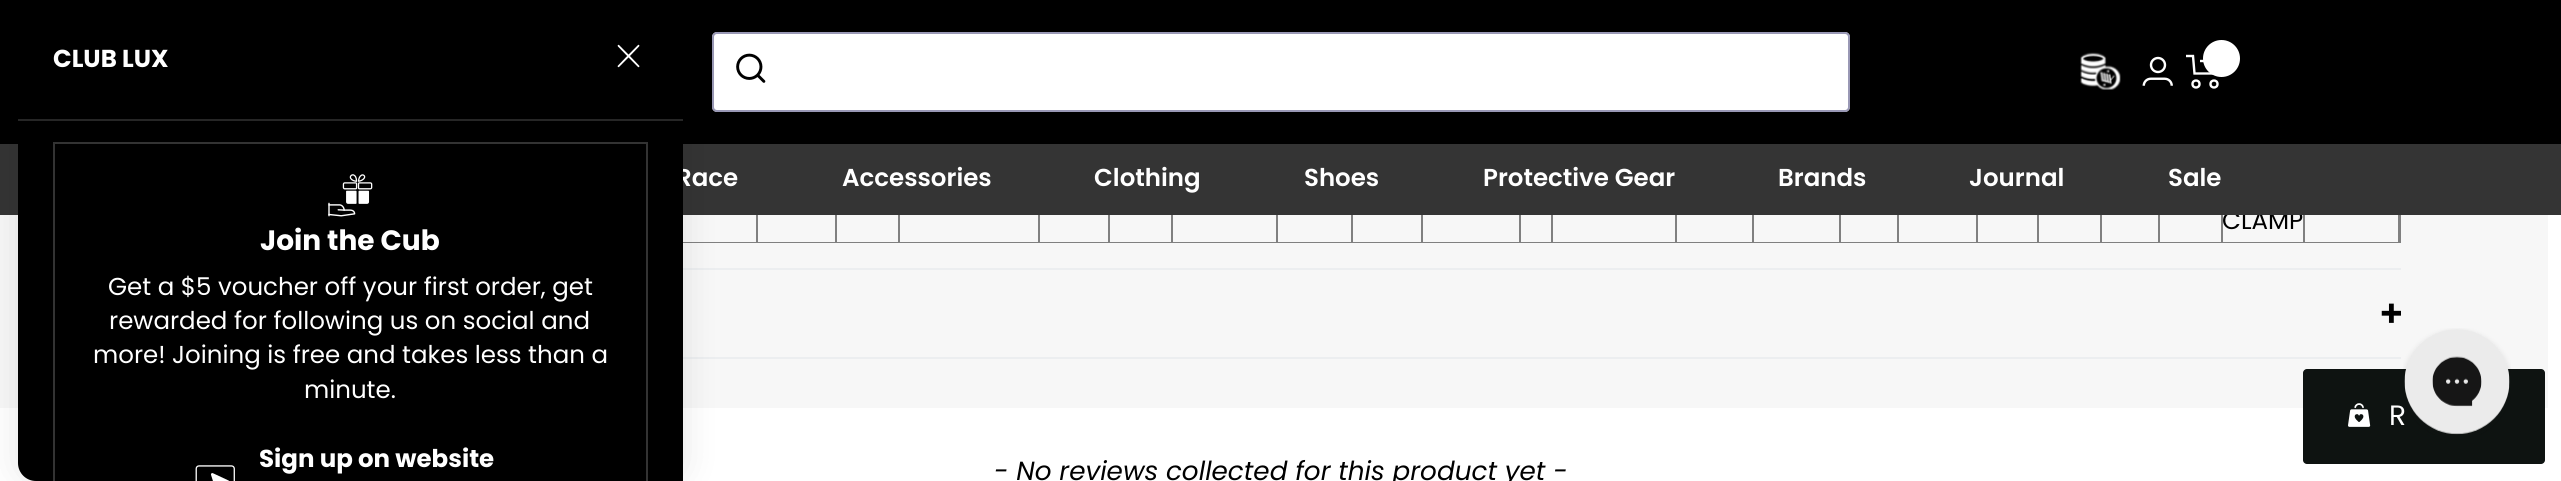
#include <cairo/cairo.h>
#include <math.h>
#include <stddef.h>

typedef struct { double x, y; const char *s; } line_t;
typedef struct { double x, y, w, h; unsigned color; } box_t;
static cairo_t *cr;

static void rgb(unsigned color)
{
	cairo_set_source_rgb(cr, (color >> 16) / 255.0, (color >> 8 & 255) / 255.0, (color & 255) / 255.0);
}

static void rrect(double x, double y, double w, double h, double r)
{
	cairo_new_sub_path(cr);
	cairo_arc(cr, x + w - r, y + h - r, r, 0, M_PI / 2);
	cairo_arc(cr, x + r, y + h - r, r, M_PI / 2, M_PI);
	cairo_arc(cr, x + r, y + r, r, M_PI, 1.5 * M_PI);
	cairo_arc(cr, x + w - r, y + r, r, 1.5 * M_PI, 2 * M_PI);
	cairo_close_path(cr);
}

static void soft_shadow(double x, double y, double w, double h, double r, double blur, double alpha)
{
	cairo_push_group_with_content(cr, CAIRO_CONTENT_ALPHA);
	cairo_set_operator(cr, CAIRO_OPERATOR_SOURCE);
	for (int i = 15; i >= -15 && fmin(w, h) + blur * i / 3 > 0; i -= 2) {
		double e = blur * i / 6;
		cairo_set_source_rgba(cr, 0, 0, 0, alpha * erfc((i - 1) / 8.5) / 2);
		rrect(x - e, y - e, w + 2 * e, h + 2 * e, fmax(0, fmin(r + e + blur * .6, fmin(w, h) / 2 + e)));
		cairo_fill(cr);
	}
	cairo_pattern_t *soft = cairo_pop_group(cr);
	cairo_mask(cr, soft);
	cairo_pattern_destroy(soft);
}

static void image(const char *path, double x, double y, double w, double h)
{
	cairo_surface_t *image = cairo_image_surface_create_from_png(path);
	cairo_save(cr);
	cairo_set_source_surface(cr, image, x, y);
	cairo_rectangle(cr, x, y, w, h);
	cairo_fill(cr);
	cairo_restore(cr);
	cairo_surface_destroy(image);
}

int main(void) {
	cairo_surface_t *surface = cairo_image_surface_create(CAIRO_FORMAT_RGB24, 2561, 481);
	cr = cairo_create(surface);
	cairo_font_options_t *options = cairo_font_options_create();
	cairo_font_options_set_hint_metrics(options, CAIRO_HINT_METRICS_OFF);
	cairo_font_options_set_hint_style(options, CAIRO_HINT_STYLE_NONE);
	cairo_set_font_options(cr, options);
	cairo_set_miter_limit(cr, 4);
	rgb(0xffffff);
	cairo_paint(cr);
	rgb(0x000000);
	cairo_rectangle(cr, 0, 0, 2561, 144);
	cairo_fill(cr);
	rgb(0xffffff);
	rrect(712, 32, 1138, 80, 5);
	cairo_fill(cr);
	rrect(713, 33, 1136, 78, 4);
	cairo_set_source_rgba(cr, 0.502, 0.494, 0.639, 0.8);
	cairo_stroke(cr);
	image("img/4.png", 736, 53, 30, 30);
	image("img/5.png", 2080, 52, 41, 38);
	image("img/6.png", 2142, 56, 31, 30);
	cairo_new_path(cr);
	cairo_move_to(cr, 2186, 56);
	cairo_line_to(cr, 2193, 56);
	cairo_line_to(cr, 2194.5, 73.5);
	cairo_line_to(cr, 2215.5, 73.5);
	cairo_line_to(cr, 2219, 61);
	cairo_line_to(cr, 2200, 61);
	rgb(0xffffff);
	cairo_set_line_width(cr, 2.4);
	cairo_stroke(cr);
	cairo_arc(cr, 2221.5, 58.5, 18.5, 0, 2 * M_PI);
	cairo_fill(cr);
	cairo_arc(cr, 2196, 84, 3.5, 0, 2 * M_PI);
	cairo_stroke(cr);
	cairo_arc(cr, 2214, 84, 3.5, 0, 2 * M_PI);
	cairo_stroke(cr);
	{
		static const box_t items[] = {
			{0, 215, 2548, 193, 0xf7f7f7},
			{683, 268, 1718, 2, 0xeceef0},
			{2400, 215, 1, 28, 0x808080},
			{683, 242, 1718, 1, 0x808080},
			{756, 215, 2, 28, 0x808080},
			{835, 215, 2, 28, 0x808080},
			{898, 215, 2, 28, 0x808080},
			{1038, 215, 2, 28, 0x808080},
			{1108, 215, 2, 28, 0x808080},
			{1171, 215, 2, 28, 0x808080},
			{1276, 215, 2, 28, 0x808080},
			{1351, 215, 2, 28, 0x808080},
			{1421, 215, 2, 28, 0x808080},
			{1519, 215, 2, 28, 0x808080},
			{1551, 215, 2, 28, 0x808080},
			{1675, 215, 2, 28, 0x808080},
			{1752, 215, 2, 28, 0x808080},
			{1839, 215, 2, 28, 0x808080},
			{1897, 215, 2, 28, 0x808080},
			{1976, 215, 2, 28, 0x808080},
			{2037, 215, 2, 28, 0x808080},
			{2100, 215, 2, 28, 0x808080},
			{2158, 215, 2, 28, 0x808080},
			{2221, 215, 2, 28, 0x808080},
			{2303, 215, 2, 28, 0x808080},
			{2398, 215, 2, 28, 0x808080},
			{683, 357, 1718, 2, 0xeceef0},
		};
		for (size_t i = 0; i < sizeof items / sizeof *items; i++) {
			rgb(items[i].color);
			cairo_rectangle(cr, items[i].x, items[i].y, items[i].w, items[i].h);
			cairo_fill(cr);
		}
	}
	image("img/7.png", 2381, 303, 20, 20);
	rgb(0x0e1311);
	rrect(2303, 369, 242, 95, 4);
	cairo_fill(cr);
	image("img/8.png", 2348, 403, 23, 24);
	cairo_select_font_face(cr, "Poppins", CAIRO_FONT_SLANT_NORMAL, CAIRO_FONT_WEIGHT_NORMAL);
	cairo_set_font_size(cr, 24.5);
	rgb(0x000000);
	cairo_move_to(cr, 2222, 229);
	cairo_show_text(cr, "CLAMP");
	rgb(0x343434);
	cairo_rectangle(cr, 0, 144, 2561, 71);
	cairo_fill(cr);
	rgb(0x000000);
	soft_shadow(18, 0, 665, 481, 18, 17.5, 0.1);
	cairo_select_font_face(cr, "Poppins SemiBold", CAIRO_FONT_SLANT_NORMAL, CAIRO_FONT_WEIGHT_NORMAL);
	rgb(0xffffff);
	cairo_move_to(cr, 676, 186);
	cairo_show_text(cr, "Race");
	rgb(0x000000);
	cairo_new_path(cr);
	cairo_move_to(cr, 36, 0);
	cairo_line_to(cr, 665, 0);
	cairo_curve_to(cr, 675, 0, 683, 8, 683, 18);
	cairo_line_to(cr, 683, 481);
	cairo_line_to(cr, 36, 481);
	cairo_curve_to(cr, 26, 481, 18, 473, 18, 463);
	cairo_line_to(cr, 18, 18);
	cairo_curve_to(cr, 18, 8, 26, 0, 36, 0);
	cairo_close_path(cr);
	cairo_fill(cr);
	image("img/1.png", 617, 44, 23, 24);
	cairo_select_font_face(cr, "Poppins", CAIRO_FONT_SLANT_NORMAL, CAIRO_FONT_WEIGHT_BOLD);
	rgb(0xffffff);
	cairo_move_to(cr, 53, 67);
	cairo_show_text(cr, "CLUB LUX");
	rgb(0x262626);
	cairo_rectangle(cr, 18, 119, 665, 2);
	cairo_fill(cr);
	rgb(0x333333);
	cairo_new_path(cr);
	cairo_move_to(cr, 53, 142);
	cairo_line_to(cr, 53, 481);
	cairo_line_to(cr, 55, 481);
	cairo_line_to(cr, 55, 144);
	cairo_line_to(cr, 646, 144);
	cairo_line_to(cr, 646, 481);
	cairo_line_to(cr, 648, 481);
	cairo_line_to(cr, 648, 142);
	cairo_close_path(cr);
	cairo_fill(cr);
	image("img/3.png", 195, 465, 40, 16);
	image("img/2.png", 328, 174, 45, 43);
	rgb(0xffffff);
	cairo_move_to(cr, 259, 467);
	cairo_show_text(cr, "Sign up on website");
	cairo_select_font_face(cr, "Poppins", CAIRO_FONT_SLANT_NORMAL, CAIRO_FONT_WEIGHT_NORMAL);
	{
		static const line_t items[] = {
			{304, 398, "minute."},
			{93, 363, "more! Joining is free and takes less than a"},
			{109, 329, "rewarded for following us on social and"},
			{108, 295, "Get a $5 voucher off your first order, get"},
		};
		for (size_t i = 0; i < sizeof items / sizeof *items; i++) {
			cairo_move_to(cr, items[i].x, items[i].y);
			cairo_show_text(cr, items[i].s);
		}
	}
	cairo_select_font_face(cr, "Poppins", CAIRO_FONT_SLANT_NORMAL, CAIRO_FONT_WEIGHT_BOLD);
	cairo_set_font_size(cr, 28);
	cairo_move_to(cr, 260, 250);
	cairo_show_text(cr, "Join the Cub");
	cairo_select_font_face(cr, "Poppins SemiBold", CAIRO_FONT_SLANT_NORMAL, CAIRO_FONT_WEIGHT_NORMAL);
	cairo_set_font_size(cr, 24.5);
	{
		static const line_t items[] = {
			{2168, 186, "Sale"},
			{1969, 186, "Journal"},
			{1778, 186, "Brands"},
			{1483, 186, "Protective Gear"},
			{1304, 186, "Shoes"},
			{1094, 186, "Clothing"},
			{842, 186, "Accessories"},
		};
		for (size_t i = 0; i < sizeof items / sizeof *items; i++) {
			cairo_move_to(cr, items[i].x, items[i].y);
			cairo_show_text(cr, items[i].s);
		}
	}
	cairo_select_font_face(cr, "Poppins", CAIRO_FONT_SLANT_ITALIC, CAIRO_FONT_WEIGHT_NORMAL);
	cairo_set_font_size(cr, 26.25);
	rgb(0x000000);
	cairo_move_to(cr, 994, 480);
	cairo_show_text(cr, "- No reviews collected for this product yet -");
	cairo_select_font_face(cr, "Poppins", CAIRO_FONT_SLANT_NORMAL, CAIRO_FONT_WEIGHT_NORMAL);
	cairo_set_font_size(cr, 28);
	rgb(0xffffff);
	cairo_move_to(cr, 2389, 425);
	cairo_show_text(cr, "R");
	image("img/9.png", 2403, 328, 108, 107);
	cairo_surface_write_to_png(surface, "page.png");
	cairo_font_options_destroy(options);
	cairo_destroy(cr);
	cairo_surface_destroy(surface);
	return 0;
}
